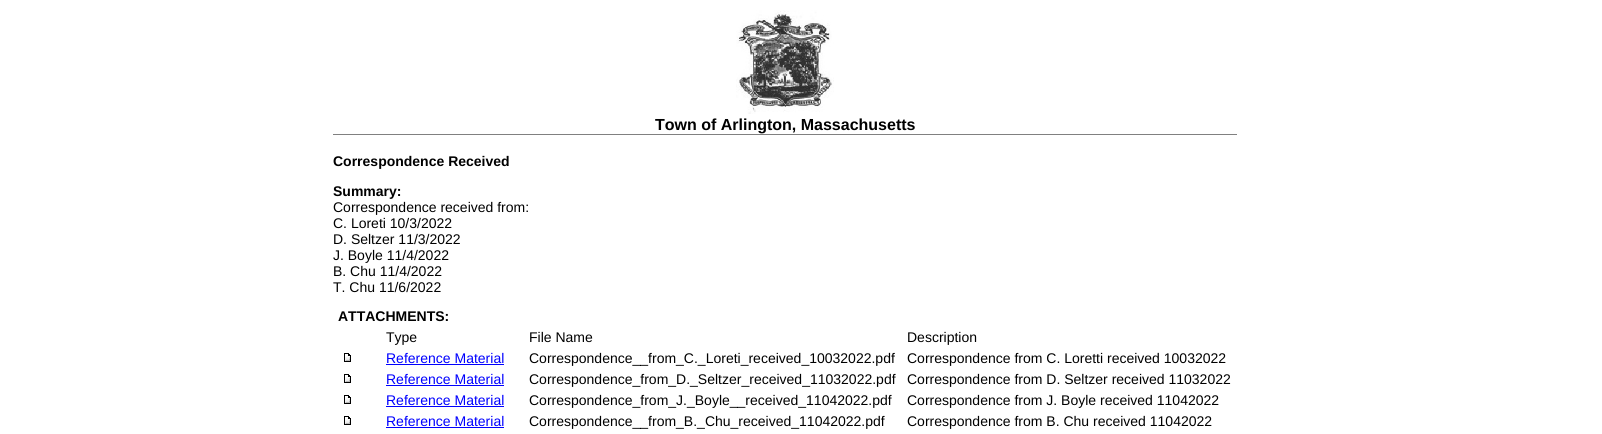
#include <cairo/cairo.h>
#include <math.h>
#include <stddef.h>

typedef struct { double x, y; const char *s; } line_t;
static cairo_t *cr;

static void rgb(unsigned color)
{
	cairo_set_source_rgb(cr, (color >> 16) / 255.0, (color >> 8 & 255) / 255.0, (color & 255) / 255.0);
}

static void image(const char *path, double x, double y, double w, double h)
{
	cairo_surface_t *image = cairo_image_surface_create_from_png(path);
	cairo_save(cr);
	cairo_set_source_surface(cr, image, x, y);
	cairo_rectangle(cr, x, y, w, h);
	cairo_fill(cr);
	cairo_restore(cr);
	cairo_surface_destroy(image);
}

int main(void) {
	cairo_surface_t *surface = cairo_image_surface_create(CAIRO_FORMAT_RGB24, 1602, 434);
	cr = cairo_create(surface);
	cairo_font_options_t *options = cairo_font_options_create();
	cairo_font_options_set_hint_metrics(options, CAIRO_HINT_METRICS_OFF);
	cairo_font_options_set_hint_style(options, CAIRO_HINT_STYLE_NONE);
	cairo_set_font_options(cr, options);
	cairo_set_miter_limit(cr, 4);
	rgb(0xffffff);
	cairo_paint(cr);
	rgb(0x808080);
	cairo_rectangle(cr, 333, 134, 904, 1);
	cairo_fill(cr);
	image("img/1.png", 736, 10, 98, 104);
	image("img/2.png", 344, 353, 7, 9);
	rgb(0x0000ff);
	cairo_rectangle(cr, 386, 364, 118, 1);
	cairo_fill(cr);
	image("img/2.png", 344, 374, 7, 9);
	cairo_rectangle(cr, 386, 385, 118, 1);
	cairo_fill(cr);
	image("img/2.png", 344, 395, 7, 9);
	cairo_rectangle(cr, 386, 406, 118, 1);
	cairo_fill(cr);
	image("img/2.png", 344, 416, 7, 9);
	cairo_rectangle(cr, 386, 427, 118, 1);
	cairo_fill(cr);
	cairo_select_font_face(cr, "Liberation Sans", CAIRO_FONT_SLANT_NORMAL, CAIRO_FONT_WEIGHT_BOLD);
	cairo_set_font_size(cr, 16);
	rgb(0x000000);
	cairo_move_to(cr, 655, 130);
	cairo_show_text(cr, "Town of Arlington, Massachusetts");
	cairo_set_font_size(cr, 14);
	cairo_move_to(cr, 333, 166);
	cairo_show_text(cr, "Correspondence Received");
	cairo_move_to(cr, 333, 196);
	cairo_show_text(cr, "Summary:");
	cairo_select_font_face(cr, "Liberation Sans", CAIRO_FONT_SLANT_NORMAL, CAIRO_FONT_WEIGHT_NORMAL);
	{
		static const line_t items[] = {
			{333, 212, "Correspondence received from:"},
			{333, 228, "C. Loreti 10/3/2022"},
			{333, 244, "D. Seltzer 11/3/2022"},
			{333, 260, "J. Boyle 11/4/2022"},
			{333, 276, "B. Chu 11/4/2022"},
			{333, 292, "T. Chu 11/6/2022"},
		};
		for (size_t i = 0; i < sizeof items / sizeof *items; i++) {
			cairo_move_to(cr, items[i].x, items[i].y);
			cairo_show_text(cr, items[i].s);
		}
	}
	cairo_select_font_face(cr, "Liberation Sans", CAIRO_FONT_SLANT_NORMAL, CAIRO_FONT_WEIGHT_BOLD);
	cairo_move_to(cr, 338, 321);
	cairo_show_text(cr, "ATTACHMENTS:");
	cairo_select_font_face(cr, "Liberation Sans", CAIRO_FONT_SLANT_NORMAL, CAIRO_FONT_WEIGHT_NORMAL);
	{
		static const line_t items[] = {
			{386, 342, "Type"},
			{529, 342, "File Name"},
			{907, 342, "Description"},
		};
		for (size_t i = 0; i < sizeof items / sizeof *items; i++) {
			cairo_move_to(cr, items[i].x, items[i].y);
			cairo_show_text(cr, items[i].s);
		}
	}
	rgb(0x0000ff);
	cairo_move_to(cr, 386, 363);
	cairo_show_text(cr, "Reference Material");
	rgb(0x000000);
	cairo_move_to(cr, 529, 363);
	cairo_show_text(cr, "Correspondence__from_C._Loreti_received_10032022.pdf");
	cairo_move_to(cr, 907, 363);
	cairo_show_text(cr, "Correspondence from C. Loretti received 10032022");
	rgb(0x0000ff);
	cairo_move_to(cr, 386, 384);
	cairo_show_text(cr, "Reference Material");
	rgb(0x000000);
	cairo_move_to(cr, 529, 384);
	cairo_show_text(cr, "Correspondence_from_D._Seltzer_received_11032022.pdf");
	cairo_move_to(cr, 907, 384);
	cairo_show_text(cr, "Correspondence from D. Seltzer received 11032022");
	rgb(0x0000ff);
	cairo_move_to(cr, 386, 405);
	cairo_show_text(cr, "Reference Material");
	rgb(0x000000);
	cairo_move_to(cr, 529, 405);
	cairo_show_text(cr, "Correspondence_from_J._Boyle__received_11042022.pdf");
	cairo_move_to(cr, 907, 405);
	cairo_show_text(cr, "Correspondence from J. Boyle received 11042022");
	rgb(0x0000ff);
	cairo_move_to(cr, 386, 426);
	cairo_show_text(cr, "Reference Material");
	rgb(0x000000);
	cairo_move_to(cr, 529, 426);
	cairo_show_text(cr, "Correspondence__from_B._Chu_received_11042022.pdf");
	cairo_move_to(cr, 907, 426);
	cairo_show_text(cr, "Correspondence from B. Chu received 11042022");
	cairo_surface_write_to_png(surface, "page.png");
	cairo_font_options_destroy(options);
	cairo_destroy(cr);
	cairo_surface_destroy(surface);
	return 0;
}
